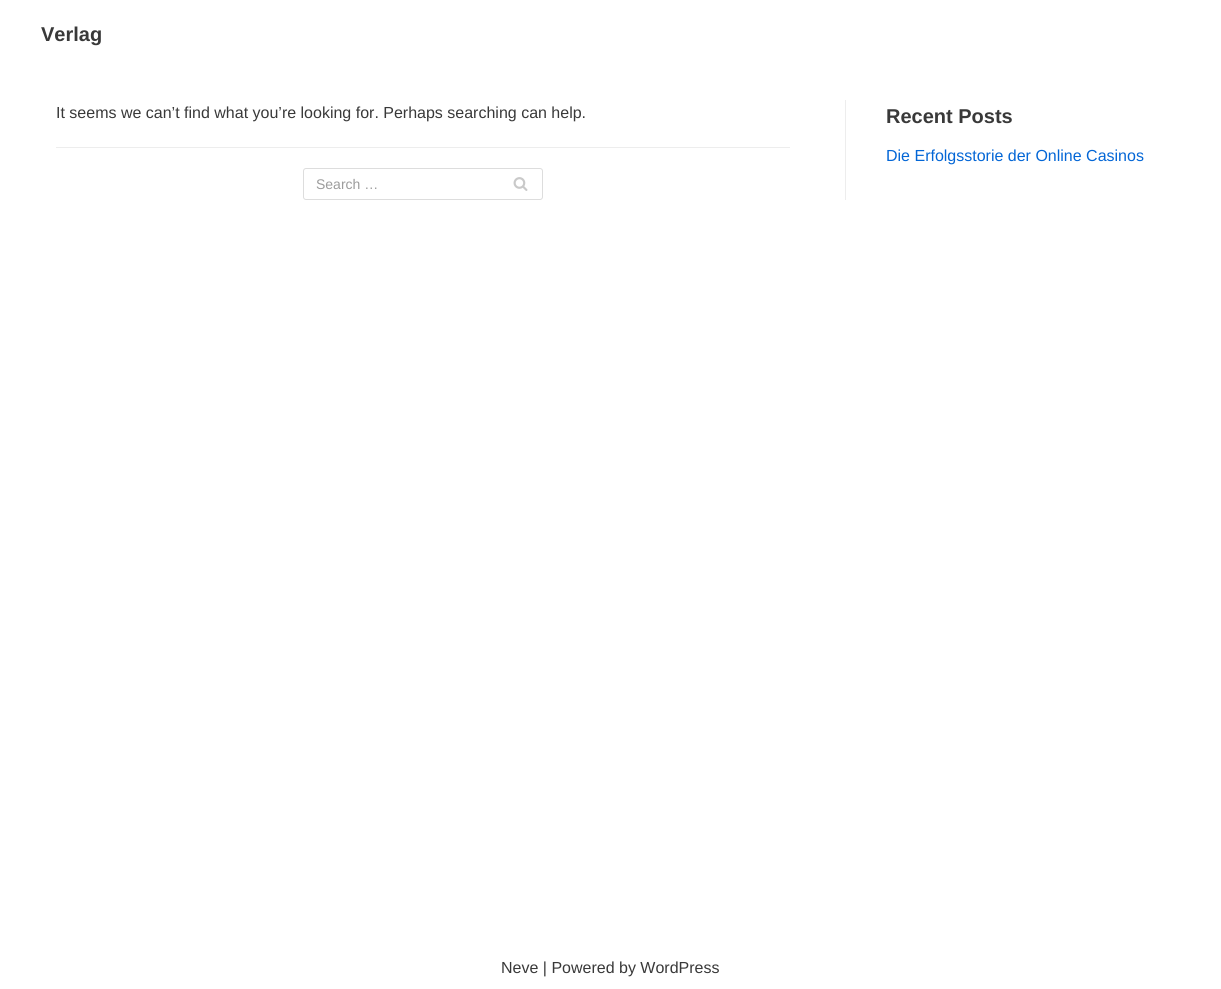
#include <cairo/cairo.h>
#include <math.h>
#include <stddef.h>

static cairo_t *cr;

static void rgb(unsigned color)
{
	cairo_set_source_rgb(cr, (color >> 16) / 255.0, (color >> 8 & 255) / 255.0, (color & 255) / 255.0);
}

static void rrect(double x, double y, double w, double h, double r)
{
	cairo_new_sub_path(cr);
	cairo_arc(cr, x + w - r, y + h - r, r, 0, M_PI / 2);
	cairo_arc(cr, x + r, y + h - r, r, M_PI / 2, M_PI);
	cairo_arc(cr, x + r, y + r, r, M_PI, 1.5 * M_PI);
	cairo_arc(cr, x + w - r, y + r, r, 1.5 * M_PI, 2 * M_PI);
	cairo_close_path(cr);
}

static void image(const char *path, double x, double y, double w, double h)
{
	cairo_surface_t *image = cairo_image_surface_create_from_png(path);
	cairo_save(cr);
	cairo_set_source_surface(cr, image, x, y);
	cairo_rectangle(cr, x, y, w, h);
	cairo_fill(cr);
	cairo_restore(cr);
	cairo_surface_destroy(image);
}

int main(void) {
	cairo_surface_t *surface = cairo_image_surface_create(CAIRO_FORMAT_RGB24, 1221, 989);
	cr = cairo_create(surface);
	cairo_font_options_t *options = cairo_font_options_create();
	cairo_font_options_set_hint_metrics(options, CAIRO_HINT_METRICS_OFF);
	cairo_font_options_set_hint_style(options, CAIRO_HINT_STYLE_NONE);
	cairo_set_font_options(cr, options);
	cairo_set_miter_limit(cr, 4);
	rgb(0xffffff);
	cairo_paint(cr);
	rgb(0xededed);
	cairo_rectangle(cr, 56, 147, 734, 1);
	cairo_fill(cr);
	rrect(303.5, 168.5, 239, 31, 2.5);
	rgb(0xdddddd);
	cairo_set_line_width(cr, 1);
	cairo_stroke(cr);
	image("img/1.png", 513, 177, 15, 14);
	rgb(0xededed);
	cairo_rectangle(cr, 845, 100, 1, 100);
	cairo_fill(cr);
	cairo_select_font_face(cr, "Liberation Sans", CAIRO_FONT_SLANT_NORMAL, CAIRO_FONT_WEIGHT_BOLD);
	cairo_set_font_size(cr, 20);
	rgb(0x393939);
	cairo_move_to(cr, 41, 41);
	cairo_show_text(cr, "Verlag");
	cairo_select_font_face(cr, "Liberation Sans", CAIRO_FONT_SLANT_NORMAL, CAIRO_FONT_WEIGHT_NORMAL);
	cairo_set_font_size(cr, 16);
	cairo_move_to(cr, 56, 118);
	cairo_show_text(cr, "It seems we can’t find what you’re looking for. Perhaps searching can help.");
	cairo_set_font_size(cr, 14);
	rgb(0x9c9c9c);
	cairo_move_to(cr, 316, 189);
	cairo_show_text(cr, "Search …");
	cairo_select_font_face(cr, "Liberation Sans", CAIRO_FONT_SLANT_NORMAL, CAIRO_FONT_WEIGHT_BOLD);
	cairo_set_font_size(cr, 20);
	rgb(0x393939);
	cairo_move_to(cr, 886, 123);
	cairo_show_text(cr, "Recent Posts");
	cairo_select_font_face(cr, "Liberation Sans", CAIRO_FONT_SLANT_NORMAL, CAIRO_FONT_WEIGHT_NORMAL);
	cairo_set_font_size(cr, 16);
	rgb(0x0366d6);
	cairo_move_to(cr, 886, 161);
	cairo_show_text(cr, "Die Erfolgsstorie der Online Casinos");
	rgb(0x393939);
	cairo_move_to(cr, 501, 973);
	cairo_show_text(cr, "Neve | Powered by WordPress");
	cairo_surface_write_to_png(surface, "page.png");
	cairo_font_options_destroy(options);
	cairo_destroy(cr);
	cairo_surface_destroy(surface);
	return 0;
}
